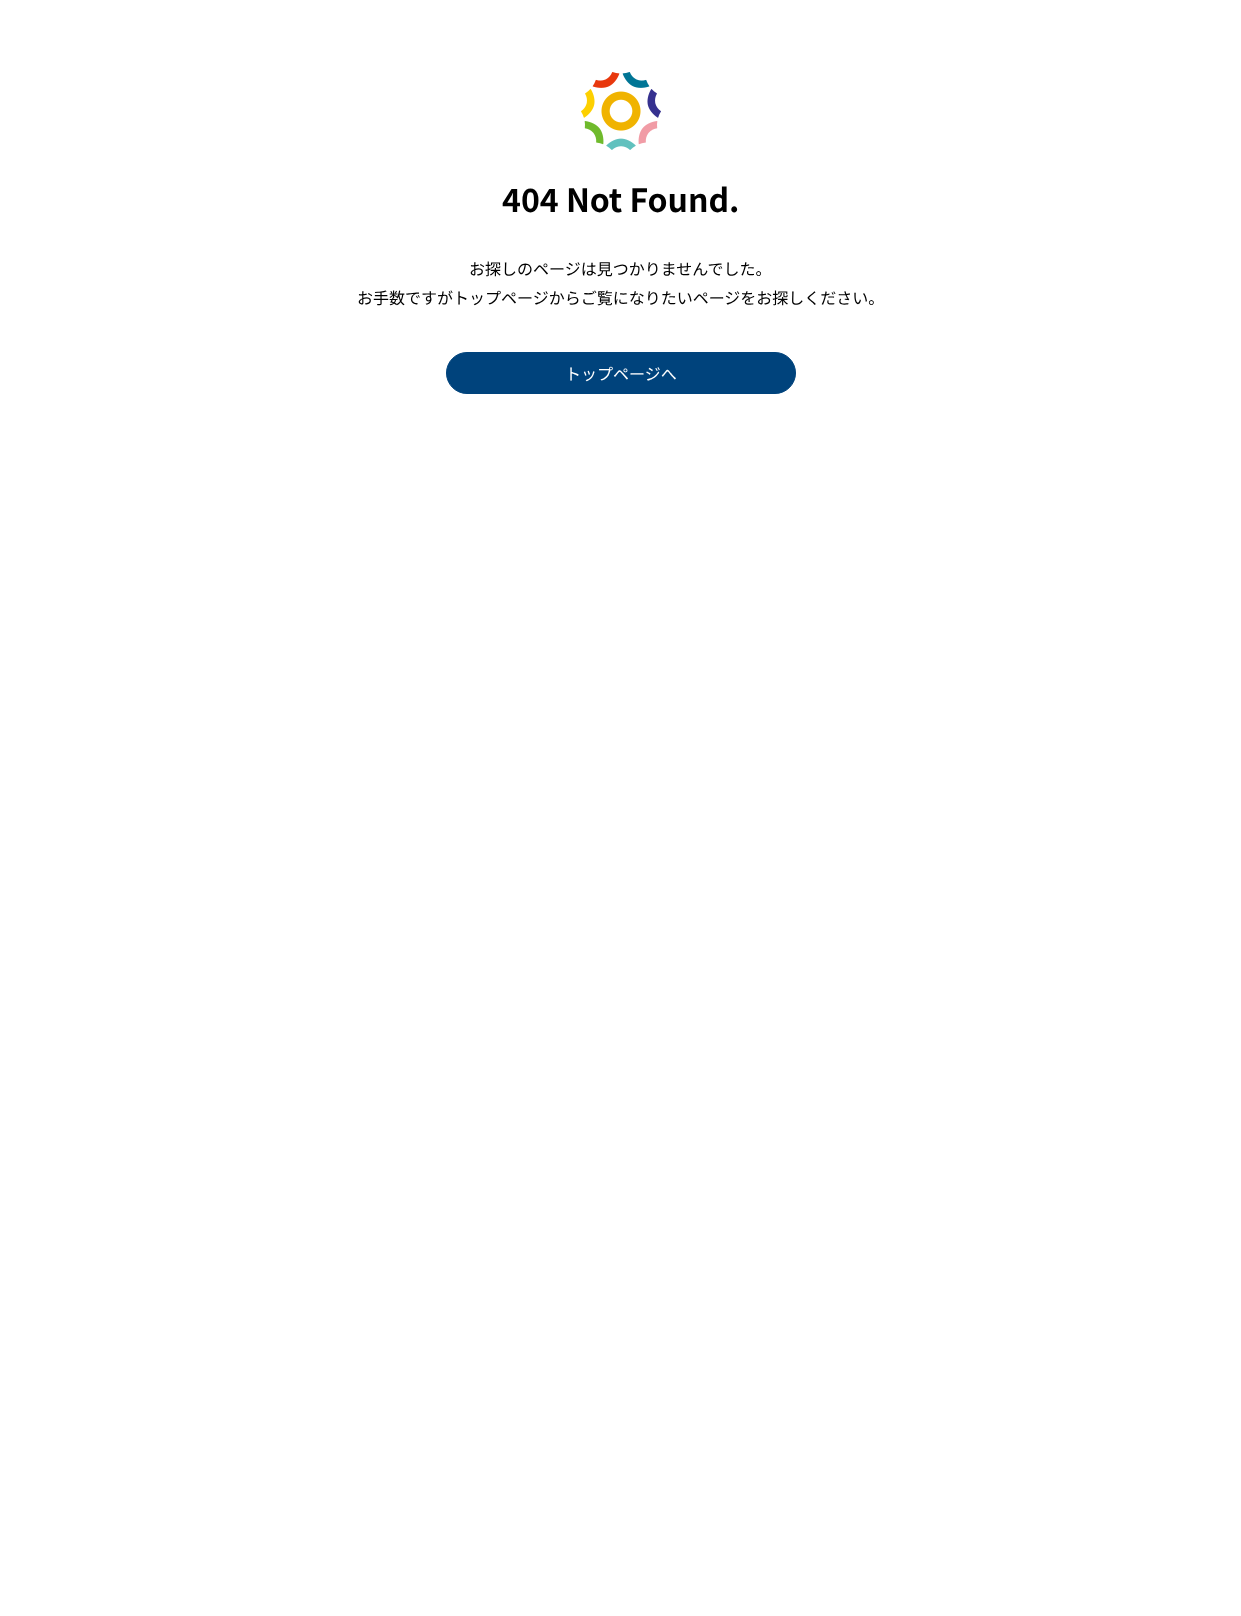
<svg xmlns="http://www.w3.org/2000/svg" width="1241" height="1616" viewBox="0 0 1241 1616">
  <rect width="100%" height="100%" fill="#ffffff"/>
  <image x="581" y="72" width="80" height="78" href="img1.png"/>
  <text x="502" y="212" font-family="Noto Sans JP" font-size="32" font-weight="bold" fill="#000000">404 Not Found.</text>
  <text x="469" y="275" font-family="Noto Sans JP" font-size="16" fill="#000000">お探しのページは見つかりませんでした。</text>
  <text x="357" y="304" font-family="Noto Sans JP" font-size="16" fill="#000000">お手数ですがトップページからご覧になりたいページをお探しください。</text>
  <rect x="446.5" y="352.5" width="349" height="41" rx="20.5" fill="#00437c" stroke="#00437c"/>
  <text x="565" y="380" font-family="Noto Sans JP" font-size="16" fill="#ffffff">トップページへ</text>
</svg>
